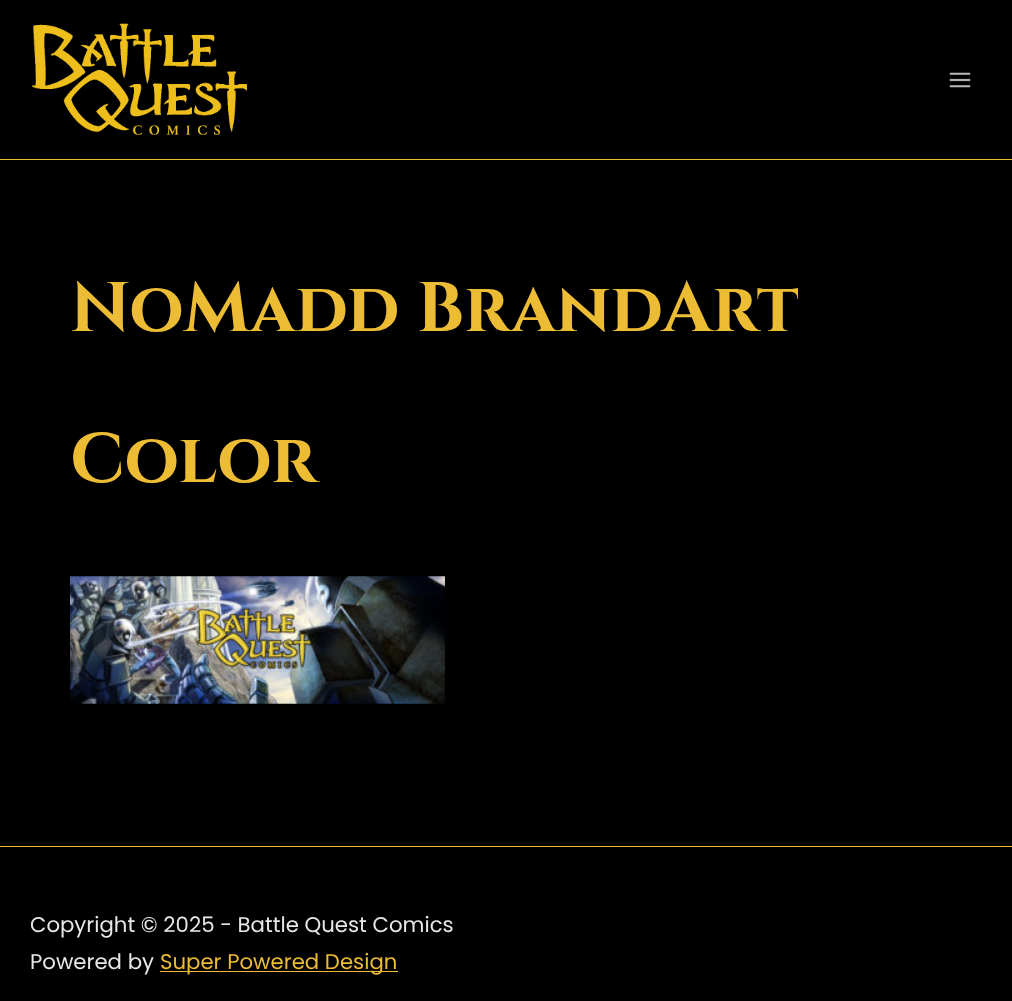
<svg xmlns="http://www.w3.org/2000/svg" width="1012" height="1001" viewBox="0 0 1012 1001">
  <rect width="100%" height="100%" fill="#000000"/>
  <rect x="0" y="159" width="1012" height="1" fill="#edbc35"/>
  <image x="31" y="23" width="216" height="112" href="img1.png"/>
  <image x="949" y="72" width="22" height="16" href="img2.png"/>
  <text x="70" y="331" font-family="Cinzel" font-size="70" font-weight="bold" fill="#edbc35">NoMadd BrandArt</text>
  <text x="70" y="482" font-family="Cinzel" font-size="70" font-weight="bold" fill="#edbc35">Color</text>
  <image x="70" y="576" width="375" height="128" href="img3.png"/>
  <rect x="0" y="846" width="1012" height="1" fill="#edbc35"/>
  <text x="30" y="932" font-family="Poppins" font-size="21.25" fill="#e7e7e7">Copyright © 2025 - Battle Quest Comics</text>
  <text x="30" y="969" font-family="Poppins" font-size="21.25" fill="#e7e7e7">Powered by</text>
  <rect x="160" y="971" width="238" height="1" fill="#edbc35"/>
  <text x="160" y="969" font-family="Poppins" font-size="21.25" fill="#edbc35">Super Powered Design</text>
</svg>
